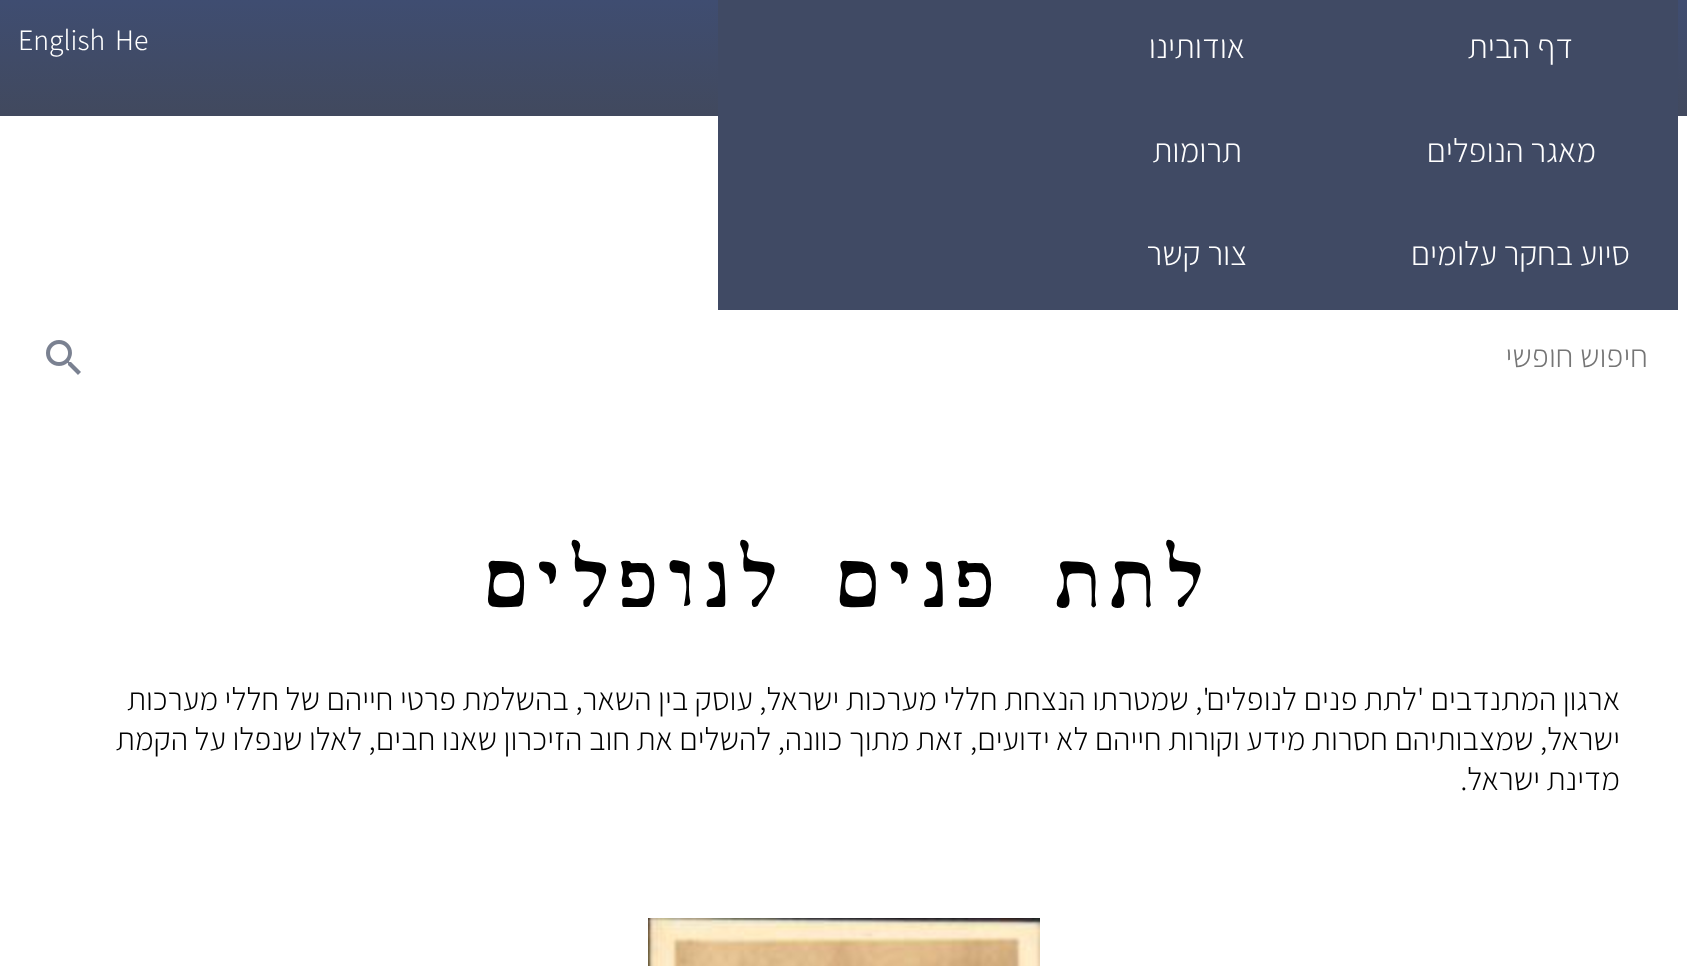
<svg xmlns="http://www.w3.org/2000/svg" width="1687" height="966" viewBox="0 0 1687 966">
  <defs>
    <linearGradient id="g1" gradientUnits="userSpaceOnUse" x1="844" y1="116" x2="844" y2="0"><stop offset="0" stop-color="#41495e"/><stop offset="1" stop-color="#3f4d71"/></linearGradient>
  </defs>
  <rect width="100%" height="100%" fill="#ffffff"/>
  <rect x="0" y="0" width="1687" height="116" fill="url(#g1)"/>
  <rect x="718" y="0" width="960" height="310" fill="#404a64"/>
  <text x="1573" y="58" font-family="Assistant" font-size="33.5" font-weight="300" direction="rtl" fill="#ffffff">דף הבית</text>
  <text x="1245" y="58" font-family="Assistant" font-size="33.5" font-weight="300" direction="rtl" fill="#ffffff">אודותינו</text>
  <text x="1596" y="162" font-family="Assistant" font-size="33.5" font-weight="300" direction="rtl" fill="#ffffff">מאגר הנופלים</text>
  <text x="1242" y="162" font-family="Assistant" font-size="33.5" font-weight="300" direction="rtl" fill="#ffffff">תרומות</text>
  <text x="1630" y="265" font-family="Assistant" font-size="33.5" font-weight="300" direction="rtl" fill="#ffffff">סיוע בחקר עלומים</text>
  <text x="1247" y="265" font-family="Assistant" font-size="33.5" font-weight="300" direction="rtl" fill="#ffffff">צור קשר</text>
  <text x="115" y="50" font-family="Assistant" font-size="29.5" font-weight="300" fill="#ffffff">He</text>
  <text x="18" y="50" font-family="Assistant" font-size="29.5" font-weight="300" fill="#ffffff">English</text>
  <text x="1648" y="367" font-family="Assistant" font-size="32" font-weight="300" direction="rtl" fill="#757575">חיפוש חופשי</text>
  <image x="46" y="340" width="35" height="35" href="img1.png"/>
  <text x="1208" y="607" font-family="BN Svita" font-size="84" direction="rtl" fill="#000000">לתת פנים לנופלים</text>
  <text x="1620" y="710" font-family="Assistant" font-size="32" font-weight="300" direction="rtl" fill="#000000">ארגון המתנדבים 'לתת פנים לנופלים', שמטרתו הנצחת חללי מערכות ישראל, עוסק בין השאר, בהשלמת פרטי חייהם של חללי מערכות</text>
  <text x="1620" y="750" font-family="Assistant" font-size="32" font-weight="300" direction="rtl" fill="#000000">ישראל, שמצבותיהם חסרות מידע וקורות חייהם לא ידועים, זאת מתוך כוונה, להשלים את חוב הזיכרון שאנו חבים, לאלו שנפלו על הקמת</text>
  <text x="1620" y="790" font-family="Assistant" font-size="32" font-weight="300" direction="rtl" fill="#000000">מדינת ישראל.</text>
  <image x="648" y="918" width="392" height="48" href="img2.png"/>
</svg>
